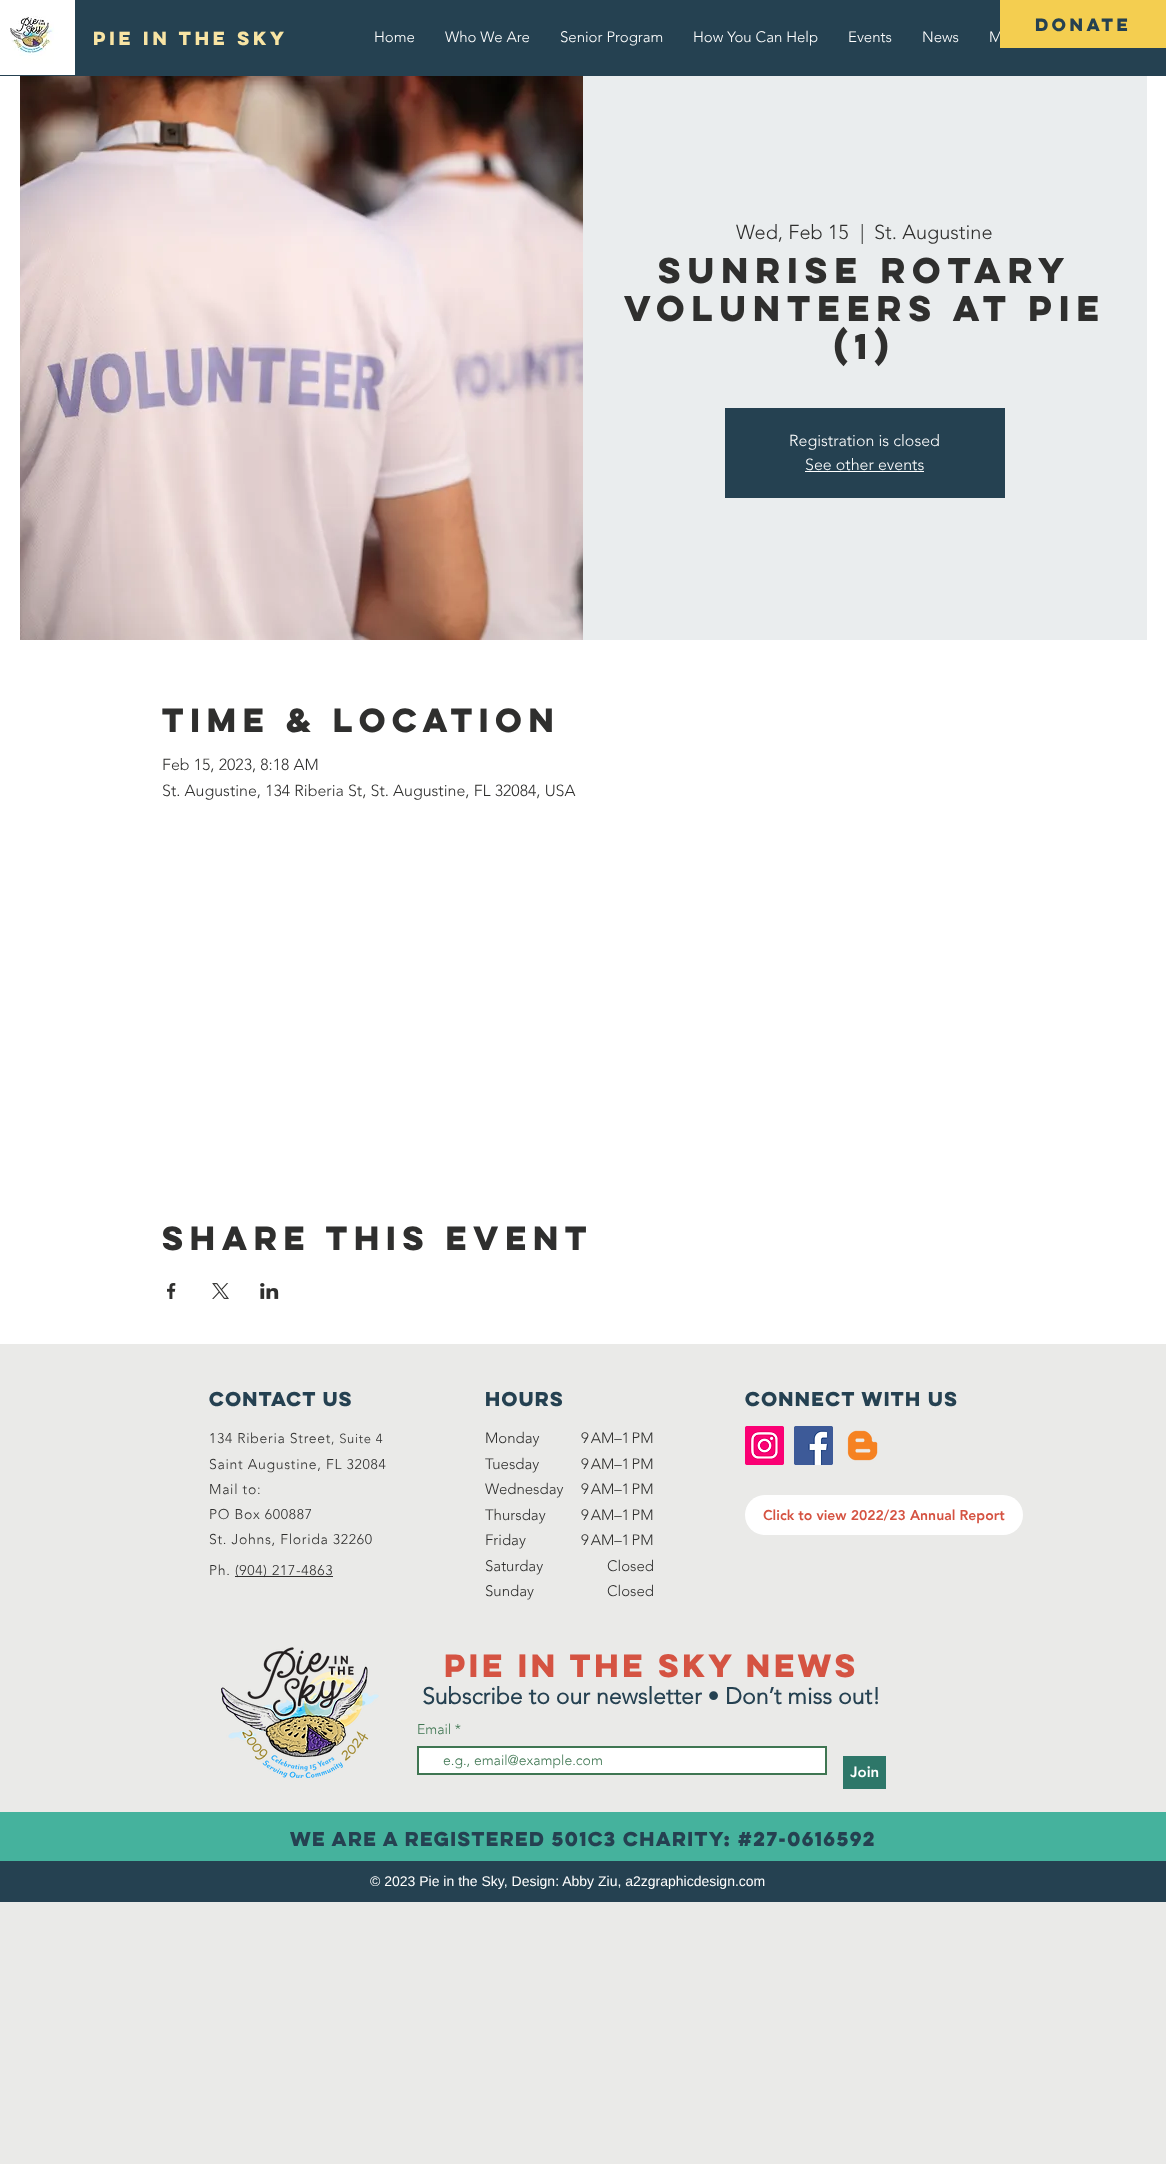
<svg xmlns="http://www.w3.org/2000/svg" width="1166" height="2164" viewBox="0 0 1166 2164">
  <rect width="100%" height="100%" fill="#eaeae8"/>
  <rect x="0" y="0" width="1166" height="76" fill="#254151"/>
  <text x="989" y="42" font-family="'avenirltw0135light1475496'" font-size="15" font-weight="300" fill="#ffffff">M</text>
  <rect x="1000" y="0" width="166" height="48" fill="#f4ce50"/>
  <text x="1035" y="31" font-family="'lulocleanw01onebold'" font-size="16" font-weight="bold" fill="#254151">DONATE</text>
  <image x="0" y="0" width="75" height="75" href="img1.png"/>
  <text x="93" y="45" font-family="'lulocleanw01onebold'" font-size="17" font-weight="bold" fill="#f8e4a4">pie in the sky</text>
  <text x="374" y="42" font-family="'avenirltw0135light1475496'" font-size="15" font-weight="300" fill="#ffffff">Home</text>
  <text x="445" y="42" font-family="'avenirltw0135light1475496'" font-size="15" font-weight="300" fill="#ffffff">Who We Are</text>
  <text x="560" y="42" font-family="'avenirltw0135light1475496'" font-size="15" font-weight="300" fill="#ffffff">Senior Program</text>
  <text x="693" y="42" font-family="'avenirltw0135light1475496'" font-size="15" font-weight="300" fill="#ffffff">How You Can Help</text>
  <text x="848" y="42" font-family="'avenirltw0135light1475496'" font-size="15" font-weight="300" fill="#ffffff">Events</text>
  <text x="922" y="42" font-family="'avenirltw0135light1475496'" font-size="15" font-weight="300" fill="#ffffff">News</text>
  <rect x="0" y="76" width="1166" height="1268" fill="#ffffff"/>
  <image x="20" y="76" width="563" height="564" href="img2.png"/>
  <rect x="583" y="76" width="564" height="564" fill="#eaedee"/>
  <text x="736" y="239" font-family="'avenirltw0135light1475496'" font-size="20" font-weight="300" fill="#2f2f2e">Wed, Feb 15</text>
  <text x="860" y="239" font-family="'avenirltw0135light1475496'" font-size="20" font-weight="300" fill="#2f2f2e">|</text>
  <text x="874" y="239" font-family="'avenirltw0135light1475496'" font-size="20" font-weight="300" fill="#2f2f2e">St. Augustine</text>
  <text x="658" y="283" font-family="'lulocleanw01onebold'" font-size="32" font-weight="bold" fill="#2f2f2e">Sunrise Rotary</text>
  <text x="624" y="321" font-family="'lulocleanw01onebold'" font-size="32" font-weight="bold" fill="#2f2f2e">Volunteers at Pie</text>
  <text x="834" y="359" font-family="'lulocleanw01onebold'" font-size="32" font-weight="bold" fill="#2f2f2e">(1)</text>
  <rect x="725" y="408" width="280" height="90" fill="#254151"/>
  <text x="789" y="446" font-family="'avenirltw0135light1475496'" font-size="16" font-weight="300" fill="#ffffff">Registration is closed</text>
  <text x="805" y="470" font-family="'avenirltw0135light1475496'" font-size="16" font-weight="300" fill="#ffffff">See other events</text>
  <rect x="805" y="471" width="119" height="1" fill="#ffffff"/>
  <text x="162" y="732" font-family="'lulocleanw01onebold'" font-size="30" font-weight="bold" fill="#2f2f2e">Time &amp; Location</text>
  <text x="162" y="770" font-family="'avenirltw0135light1475496'" font-size="16" font-weight="300" fill="#2f2f2e">Feb 15, 2023, 8:18 AM</text>
  <text x="162" y="796" font-family="'avenirltw0135light1475496'" font-size="16" font-weight="300" fill="#2f2f2e">St. Augustine, 134 Riberia St, St. Augustine, FL 32084, USA</text>
  <text x="162" y="1250" font-family="'lulocleanw01onebold'" font-size="30" font-weight="bold" fill="#2f2f2e">Share this event</text>
  <image x="167" y="1283" width="9" height="16" href="img3.png"/>
  <image x="212" y="1283" width="17" height="16" href="img4.png"/>
  <image x="260" y="1283" width="19" height="16" href="img5.png"/>
  <text x="209" y="1406" font-family="'lulocleanw01onebold'" font-size="18" font-weight="bold" letter-spacing="-2.7" fill="#254151">Contact Us</text>
  <text x="485" y="1406" font-family="'lulocleanw01onebold'" font-size="18" font-weight="bold" letter-spacing="-2.7" fill="#254151">hours</text>
  <text x="745" y="1406" font-family="'lulocleanw01onebold'" font-size="18" font-weight="bold" letter-spacing="-2.7" fill="#254151">Connect with us</text>
  <text x="209" y="1443" font-family="'avenirltw0135light1475496'" font-size="14" font-weight="300" letter-spacing="0.7" fill="#2f2f2e">134 Riberia Street</text>
  <text x="331" y="1443" font-family="'avenirltw0135light1475496'" font-size="13" font-weight="300" letter-spacing="0.7" fill="#2f2f2e">, Suite 4</text>
  <text x="209" y="1469" font-family="'avenirltw0135light1475496'" font-size="14" font-weight="300" letter-spacing="0.7" fill="#2f2f2e">Saint Augustine, FL 32084</text>
  <text x="209" y="1494" font-family="'avenirltw0135light1475496'" font-size="14" font-weight="300" letter-spacing="0.7" fill="#2f2f2e">Mail to:</text>
  <text x="209" y="1519" font-family="'avenirltw0135light1475496'" font-size="14" font-weight="300" letter-spacing="0.7" fill="#2f2f2e">PO Box 600887</text>
  <text x="209" y="1544" font-family="'avenirltw0135light1475496'" font-size="14" font-weight="300" letter-spacing="0.7" fill="#2f2f2e">St. Johns, Florida 32260</text>
  <text x="209" y="1575" font-family="'avenirltw0135light1475496'" font-size="14" font-weight="300" letter-spacing="0.7" fill="#2f2f2e">Ph.</text>
  <rect x="235" y="1576" width="98" height="1" fill="#2f2f2e"/>
  <text x="235" y="1575" font-family="'avenirltw0135light1475496'" font-size="14" font-weight="300" letter-spacing="0.7" fill="#2f2f2e">(904) 217-4863</text>
  <text x="485" y="1443" font-family="'avenirltw0135light1475496'" font-size="15" font-weight="300" fill="#2f2f2e">Monday</text>
  <text x="485" y="1469" font-family="'avenirltw0135light1475496'" font-size="15" font-weight="300" fill="#2f2f2e">Tuesday</text>
  <text x="485" y="1494" font-family="'avenirltw0135light1475496'" font-size="15" font-weight="300" fill="#2f2f2e">Wednesday</text>
  <text x="485" y="1520" font-family="'avenirltw0135light1475496'" font-size="15" font-weight="300" fill="#2f2f2e">Thursday</text>
  <text x="485" y="1545" font-family="'avenirltw0135light1475496'" font-size="15" font-weight="300" fill="#2f2f2e">Friday</text>
  <text x="485" y="1571" font-family="'avenirltw0135light1475496'" font-size="15" font-weight="300" fill="#2f2f2e">Saturday</text>
  <text x="485" y="1596" font-family="'avenirltw0135light1475496'" font-size="15" font-weight="300" fill="#2f2f2e">Sunday</text>
  <text x="581" y="1443" font-family="'avenirltw0135light1475496'" font-size="15" font-weight="300" fill="#2f2f2e">9 AM–1 PM</text>
  <text x="581" y="1469" font-family="'avenirltw0135light1475496'" font-size="15" font-weight="300" fill="#2f2f2e">9 AM–1 PM</text>
  <text x="581" y="1494" font-family="'avenirltw0135light1475496'" font-size="15" font-weight="300" fill="#2f2f2e">9 AM–1 PM</text>
  <text x="581" y="1520" font-family="'avenirltw0135light1475496'" font-size="15" font-weight="300" fill="#2f2f2e">9 AM–1 PM</text>
  <text x="581" y="1545" font-family="'avenirltw0135light1475496'" font-size="15" font-weight="300" fill="#2f2f2e">9 AM–1 PM</text>
  <text x="607" y="1571" font-family="'avenirltw0135light1475496'" font-size="15" font-weight="300" fill="#2f2f2e">Closed</text>
  <text x="607" y="1596" font-family="'avenirltw0135light1475496'" font-size="15" font-weight="300" fill="#2f2f2e">Closed</text>
  <image x="745" y="1426" width="39" height="39" href="img6.png"/>
  <image x="794" y="1426" width="39" height="39" href="img7.png"/>
  <image x="847" y="1430" width="31" height="31" href="img8.png"/>
  <rect x="745" y="1495" width="278" height="40" rx="20" fill="#ffffff"/>
  <text x="763" y="1520" font-family="'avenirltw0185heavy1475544'" font-size="14" font-weight="900" fill="#d55342">Click to view 2022/23 Annual Report</text>
  <image x="221" y="1647" width="158" height="131" href="img9.png"/>
  <text x="444" y="1677" font-family="'lulocleanw01onebold'" font-size="29" font-weight="bold" letter-spacing="-2.9" fill="#d55342">pie in the sky news</text>
  <text x="422" y="1704" font-family="'avenirltw0135light1475496'" font-size="23" font-weight="bold" fill="#254151">Subscribe to our newsletter • Don’t miss out!</text>
  <text x="417" y="1734" font-family="'avenirltw0135light1475496'" font-size="14" font-weight="300" fill="#3f7652">Email *</text>
  <rect x="418" y="1747" width="408" height="27" fill="#ffffff" stroke="#3f7652" stroke-width="2"/>
  <text x="443" y="1765" font-family="'avenirltw0135light1475496'" font-size="14" font-weight="300" fill="#3f7652">e.g., email@example.com</text>
  <rect x="843" y="1756" width="43" height="33" fill="#2e7769"/>
  <text x="850" y="1777" font-family="'avenirltw0185heavy1475544'" font-size="15" font-weight="900" fill="#ffffff">Join</text>
  <rect x="0" y="1812" width="1166" height="49" fill="#45b29d"/>
  <text x="290" y="1846" font-family="'lulocleanw01onebold'" font-size="18" font-weight="bold" letter-spacing="-2.7" fill="#254151">we are a registered 501c3 Charity: #27-0616592</text>
  <rect x="0" y="1861" width="1166" height="41" fill="#254151"/>
  <text x="370" y="1886" font-family="Liberation Sans" font-size="14" fill="#ffffff">© 2023 Pie in the Sky, Design: Abby Ziu, a2zgraphicdesign.com</text>
</svg>
